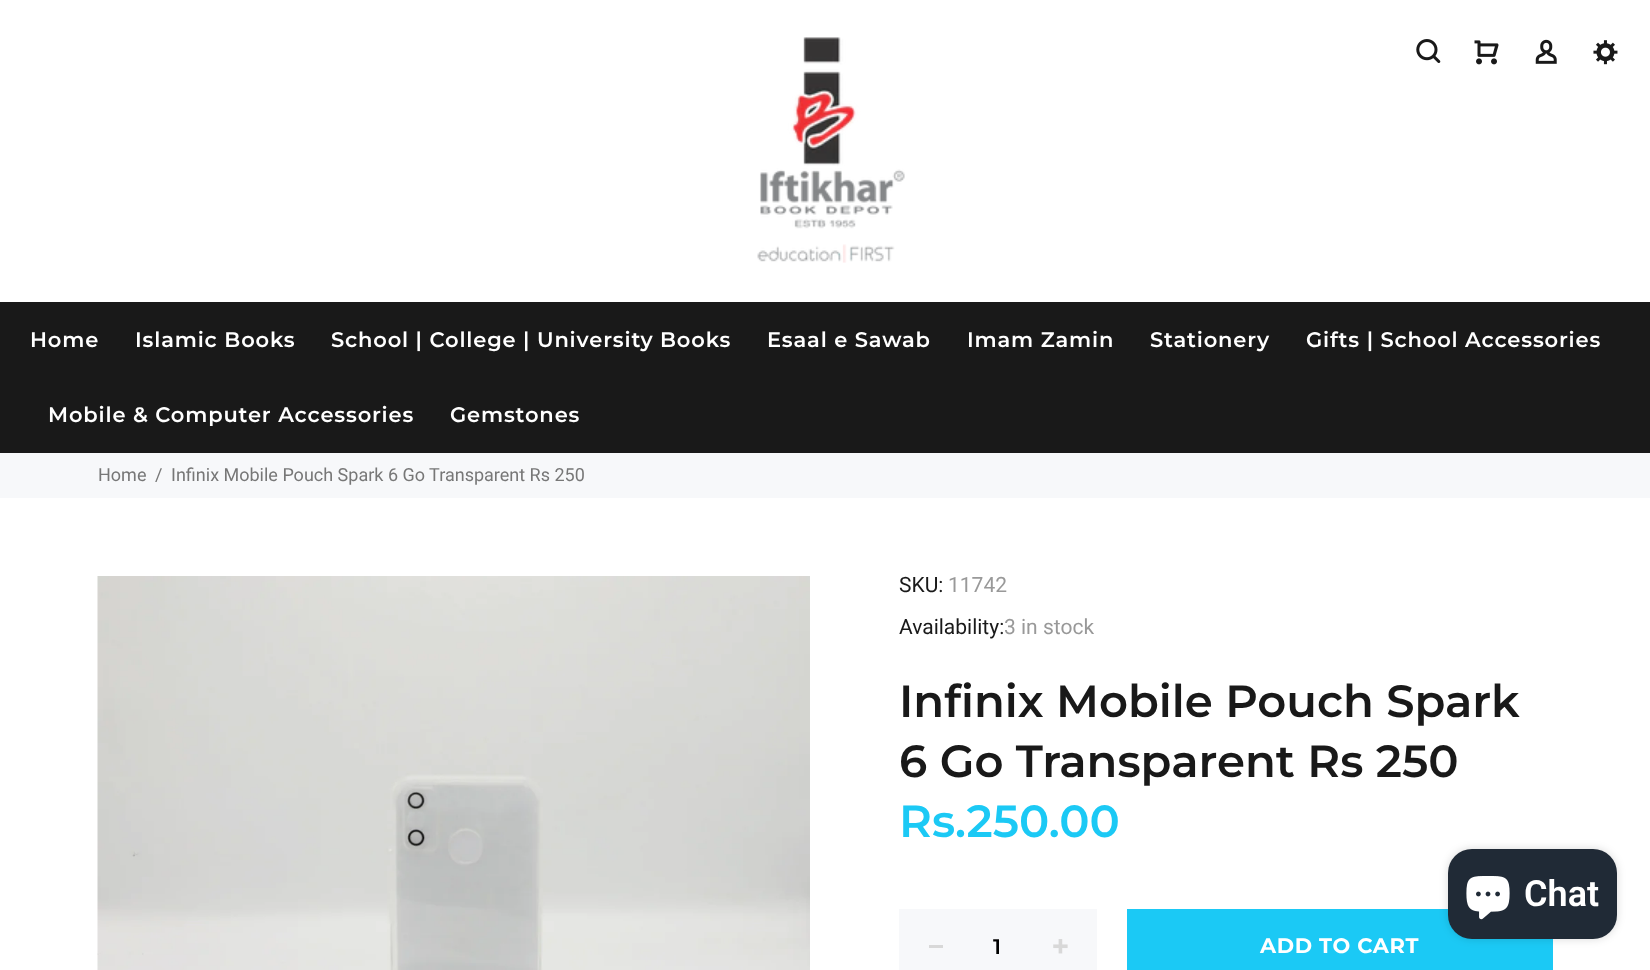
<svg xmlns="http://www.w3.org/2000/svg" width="1650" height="970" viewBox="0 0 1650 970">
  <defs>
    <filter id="blur1" x="-50%" y="-200%" width="200%" height="500%"><feGaussianBlur stdDeviation="4"/></filter>
  </defs>
  <rect width="100%" height="100%" fill="#ffffff"/>
  <image x="757" y="37" width="148" height="226" href="img1.png"/>
  <image x="1416" y="39" width="25" height="24" href="img2.png"/>
  <image x="1474" y="40" width="25" height="25" href="img3.png"/>
  <image x="1535" y="39" width="22" height="25" href="img4.png"/>
  <image x="1593" y="40" width="25" height="25" href="img5.png"/>
  <rect x="0" y="302" width="1650" height="151" fill="#191919"/>
  <text x="30" y="347" font-family="Montserrat" font-size="21" font-weight="600" letter-spacing="0.85" fill="#ffffff">Home</text>
  <text x="135" y="347" font-family="Montserrat" font-size="21" font-weight="600" letter-spacing="0.85" fill="#ffffff">Islamic Books</text>
  <text x="331" y="347" font-family="Montserrat" font-size="21" font-weight="600" letter-spacing="0.85" fill="#ffffff">School | College | University Books</text>
  <text x="767" y="347" font-family="Montserrat" font-size="21" font-weight="600" letter-spacing="0.85" fill="#ffffff">Esaal e Sawab</text>
  <text x="967" y="347" font-family="Montserrat" font-size="21" font-weight="600" letter-spacing="0.85" fill="#ffffff">Imam Zamin</text>
  <text x="1150" y="347" font-family="Montserrat" font-size="21" font-weight="600" letter-spacing="0.85" fill="#ffffff">Stationery</text>
  <text x="1306" y="347" font-family="Montserrat" font-size="21" font-weight="600" letter-spacing="0.85" fill="#ffffff">Gifts | School Accessories</text>
  <text x="48" y="422" font-family="Montserrat" font-size="21" font-weight="600" letter-spacing="0.85" fill="#ffffff">Mobile &amp; Computer Accessories</text>
  <text x="450" y="422" font-family="Montserrat" font-size="21" font-weight="600" letter-spacing="0.85" fill="#ffffff">Gemstones</text>
  <rect x="0" y="453" width="1650" height="45" fill="#f7f8fa"/>
  <text x="98" y="481" font-family="Roboto" font-size="18" fill="#777777">Home</text>
  <text x="155" y="481" font-family="Roboto" font-size="18" fill="#777777">/</text>
  <text x="171" y="481" font-family="Roboto" font-size="18" fill="#777777">Infinix Mobile Pouch Spark 6 Go Transparent Rs 250</text>
  <image x="97" y="576" width="713" height="394" href="img6.png"/>
  <text x="899" y="592" font-family="Roboto" font-size="21" fill="#191919">SKU:</text>
  <text x="948" y="592" font-family="Roboto" font-size="21" fill="#999999">11742</text>
  <text x="899" y="634" font-family="Roboto" font-size="21" fill="#191919">Availability:</text>
  <text x="1004" y="634" font-family="Roboto" font-size="21" fill="#999999">3 in stock</text>
  <text x="899" y="717" font-family="Montserrat" font-size="45" font-weight="600" fill="#191919">Infinix Mobile Pouch Spark</text>
  <text x="899" y="777" font-family="Montserrat" font-size="45" font-weight="600" fill="#191919">6 Go Transparent Rs 250</text>
  <text x="899" y="837" font-family="Montserrat" font-size="45" font-weight="600" fill="#1bc9f5">Rs.250.00</text>
  <rect x="899" y="909" width="198" height="61" fill="#f7f8fa"/>
  <rect x="929" y="945" width="14" height="3" fill="#d8d8d8"/>
  <text x="993" y="954" font-family="Montserrat" font-size="21" font-weight="600" fill="#000000">1</text>
  <image x="1053" y="939" width="15" height="15" href="img7.png"/>
  <rect x="1127" y="909" width="426" height="61" fill="#1bc9f5"/>
  <text x="1260" y="953" font-family="Montserrat" font-size="21" font-weight="bold" letter-spacing="0.6" fill="#ffffff">ADD TO CART</text>
  <rect x="1448" y="849" width="169" height="90" rx="24" fill="#000000" fill-opacity="0.15" filter="url(#blur1)"/>
  <rect x="1448" y="849" width="169" height="90" rx="24" fill="#202a36"/>
  <image x="1466" y="876" width="44" height="44" href="img8.png"/>
  <text x="1524" y="906" font-family="Roboto" font-size="36" font-weight="600" fill="#ffffff">Chat</text>
</svg>
